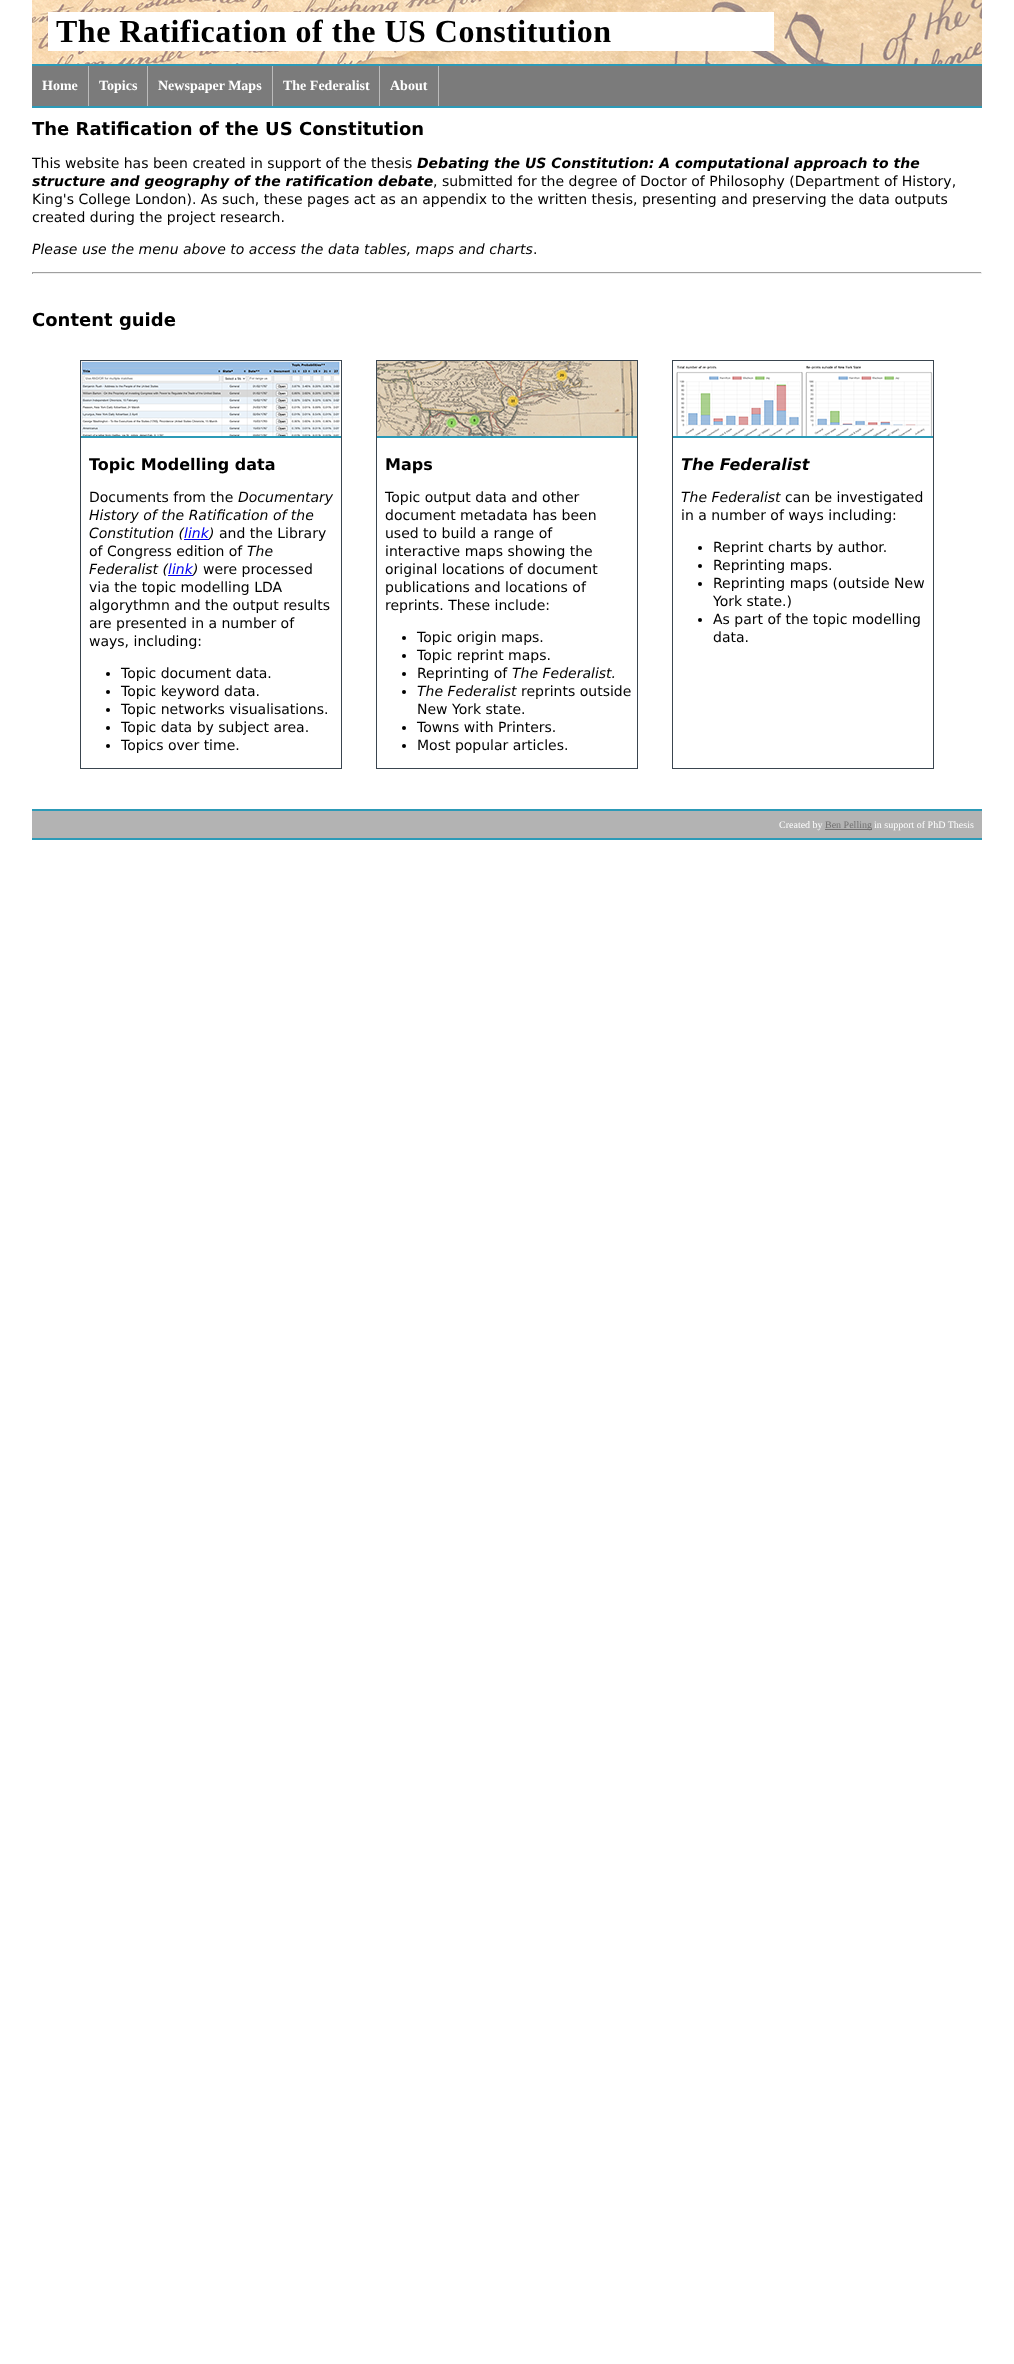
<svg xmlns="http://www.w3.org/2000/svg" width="1014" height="2364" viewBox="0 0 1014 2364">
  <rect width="100%" height="100%" fill="#ffffff"/>
  <image x="32" y="0" width="950" height="64" href="img1.png"/>
  <rect x="32" y="64" width="950" height="2" fill="#2c9ab7"/>
  <rect x="48" y="12" width="726" height="39" fill="#ffffff"/>
  <text x="56" y="42" font-family="Liberation Serif" font-size="32" font-weight="bold" letter-spacing="0.5" fill="#000000">The Ratification of the US Constitution</text>
  <rect x="32" y="66" width="950" height="40" fill="#7b7b7b"/>
  <rect x="32" y="106" width="950" height="2" fill="#2c9ab7"/>
  <rect x="88" y="66" width="1" height="40" fill="#bbbbbb"/>
  <text x="42" y="90" font-family="Liberation Serif" font-size="14" font-weight="bold" fill="#ffffff">Home</text>
  <rect x="147" y="66" width="1" height="40" fill="#bbbbbb"/>
  <text x="99" y="90" font-family="Liberation Serif" font-size="14" font-weight="bold" fill="#ffffff">Topics</text>
  <rect x="272" y="66" width="1" height="40" fill="#bbbbbb"/>
  <text x="158" y="90" font-family="Liberation Serif" font-size="14" font-weight="bold" fill="#ffffff">Newspaper Maps</text>
  <rect x="379" y="66" width="1" height="40" fill="#bbbbbb"/>
  <text x="283" y="90" font-family="Liberation Serif" font-size="14" font-weight="bold" fill="#ffffff">The Federalist</text>
  <rect x="438" y="66" width="1" height="40" fill="#bbbbbb"/>
  <text x="390" y="90" font-family="Liberation Serif" font-size="14" font-weight="bold" fill="#ffffff">About</text>
  <text x="32" y="135" font-family="DejaVu Sans" font-size="18" font-weight="bold" fill="#000000">The Ratification of the US Constitution</text>
  <text x="32" y="168" font-family="DejaVu Sans" font-size="14" fill="#000000">This website has been created in support of the thesis</text>
  <text x="417" y="168" font-family="DejaVu Sans" font-size="14" font-weight="bold" font-style="italic" fill="#000000">Debating the US Constitution: A computational approach to the</text>
  <text x="32" y="186" font-family="DejaVu Sans" font-size="14" font-weight="bold" font-style="italic" fill="#000000">structure and geography of the ratification debate</text>
  <text x="433" y="186" font-family="DejaVu Sans" font-size="14" fill="#000000">, submitted for the degree of Doctor of Philosophy (Department of History,</text>
  <text x="32" y="204" font-family="DejaVu Sans" font-size="14" fill="#000000">King's College London). As such, these pages act as an appendix to the written thesis, presenting and preserving the data outputs</text>
  <text x="32" y="222" font-family="DejaVu Sans" font-size="14" fill="#000000">created during the project research.</text>
  <text x="32" y="254" font-family="DejaVu Sans" font-size="14" font-style="italic" fill="#000000">Please use the menu above to access the data tables, maps and charts</text>
  <text x="533" y="254" font-family="DejaVu Sans" font-size="14" fill="#000000">.</text>
  <rect x="32" y="272" width="950" height="1" fill="#9f9f9f"/>
  <rect x="981" y="272" width="1" height="2" fill="#eeeeee"/>
  <rect x="32" y="273" width="950" height="1" fill="#eeeeee"/>
  <rect x="32" y="272" width="1" height="2" fill="#9f9f9f"/>
  <text x="32" y="326" font-family="DejaVu Sans" font-size="18" font-weight="bold" fill="#000000">Content guide</text>
  <rect x="80.5" y="360.5" width="261" height="408" fill="none" stroke="#3a454f"/>
  <image x="81" y="361" width="259" height="75" href="img2.png"/>
  <rect x="81" y="436" width="260" height="2" fill="#2c9ab7"/>
  <text x="89" y="470" font-family="DejaVu Sans" font-size="16" font-weight="bold" fill="#000000">Topic Modelling data</text>
  <text x="89" y="502" font-family="DejaVu Sans" font-size="14" fill="#000000">Documents from the</text>
  <text x="238" y="502" font-family="DejaVu Sans" font-size="14" font-style="italic" fill="#000000">Documentary</text>
  <text x="89" y="520" font-family="DejaVu Sans" font-size="14" font-style="italic" fill="#000000">History of the Ratification of the</text>
  <text x="89" y="538" font-family="DejaVu Sans" font-size="14" font-style="italic" fill="#000000">Constitution (</text>
  <rect x="184" y="539" width="25" height="1" fill="#0000ee"/>
  <text x="184" y="538" font-family="DejaVu Sans" font-size="14" font-style="italic" fill="#0000ee">link</text>
  <text x="209" y="538" font-family="DejaVu Sans" font-size="14" font-style="italic" fill="#000000">)</text>
  <text x="219" y="538" font-family="DejaVu Sans" font-size="14" fill="#000000">and the Library</text>
  <text x="89" y="556" font-family="DejaVu Sans" font-size="14" fill="#000000">of Congress edition of</text>
  <text x="247" y="556" font-family="DejaVu Sans" font-size="14" font-style="italic" fill="#000000">The</text>
  <text x="89" y="574" font-family="DejaVu Sans" font-size="14" font-style="italic" fill="#000000">Federalist (</text>
  <rect x="168" y="575" width="25" height="1" fill="#0000ee"/>
  <text x="168" y="574" font-family="DejaVu Sans" font-size="14" font-style="italic" fill="#0000ee">link</text>
  <text x="193" y="574" font-family="DejaVu Sans" font-size="14" font-style="italic" fill="#000000">)</text>
  <text x="203" y="574" font-family="DejaVu Sans" font-size="14" fill="#000000">were processed</text>
  <text x="89" y="592" font-family="DejaVu Sans" font-size="14" fill="#000000">via the topic modelling LDA</text>
  <text x="89" y="610" font-family="DejaVu Sans" font-size="14" fill="#000000">algorythmn and the output results</text>
  <text x="89" y="628" font-family="DejaVu Sans" font-size="14" fill="#000000">are presented in a number of</text>
  <text x="89" y="646" font-family="DejaVu Sans" font-size="14" fill="#000000">ways, including:</text>
  <circle cx="108" cy="674" r="2" fill="#000000"/>
  <text x="121" y="678" font-family="DejaVu Sans" font-size="14" fill="#000000">Topic document data.</text>
  <circle cx="108" cy="692" r="2" fill="#000000"/>
  <text x="121" y="696" font-family="DejaVu Sans" font-size="14" fill="#000000">Topic keyword data.</text>
  <circle cx="108" cy="710" r="2" fill="#000000"/>
  <text x="121" y="714" font-family="DejaVu Sans" font-size="14" fill="#000000">Topic networks visualisations.</text>
  <circle cx="108" cy="728" r="2" fill="#000000"/>
  <text x="121" y="732" font-family="DejaVu Sans" font-size="14" fill="#000000">Topic data by subject area.</text>
  <circle cx="108" cy="746" r="2" fill="#000000"/>
  <text x="121" y="750" font-family="DejaVu Sans" font-size="14" fill="#000000">Topics over time.</text>
  <rect x="376.5" y="360.5" width="261" height="408" fill="none" stroke="#3a454f"/>
  <image x="377" y="361" width="260" height="75" href="img3.png"/>
  <rect x="377" y="436" width="260" height="2" fill="#2c9ab7"/>
  <text x="385" y="470" font-family="DejaVu Sans" font-size="16" font-weight="bold" fill="#000000">Maps</text>
  <text x="385" y="502" font-family="DejaVu Sans" font-size="14" fill="#000000">Topic output data and other</text>
  <text x="385" y="520" font-family="DejaVu Sans" font-size="14" fill="#000000">document metadata has been</text>
  <text x="385" y="538" font-family="DejaVu Sans" font-size="14" fill="#000000">used to build a range of</text>
  <text x="385" y="556" font-family="DejaVu Sans" font-size="14" fill="#000000">interactive maps showing the</text>
  <text x="385" y="574" font-family="DejaVu Sans" font-size="14" fill="#000000">original locations of document</text>
  <text x="385" y="592" font-family="DejaVu Sans" font-size="14" fill="#000000">publications and locations of</text>
  <text x="385" y="610" font-family="DejaVu Sans" font-size="14" fill="#000000">reprints. These include:</text>
  <circle cx="404" cy="638" r="2" fill="#000000"/>
  <text x="417" y="642" font-family="DejaVu Sans" font-size="14" fill="#000000">Topic origin maps.</text>
  <circle cx="404" cy="656" r="2" fill="#000000"/>
  <text x="417" y="660" font-family="DejaVu Sans" font-size="14" fill="#000000">Topic reprint maps.</text>
  <circle cx="404" cy="674" r="2" fill="#000000"/>
  <text x="417" y="678" font-family="DejaVu Sans" font-size="14" fill="#000000">Reprinting of</text>
  <text x="512" y="678" font-family="DejaVu Sans" font-size="14" font-style="italic" fill="#000000">The Federalist.</text>
  <circle cx="404" cy="692" r="2" fill="#000000"/>
  <text x="417" y="696" font-family="DejaVu Sans" font-size="14" font-style="italic" fill="#000000">The Federalist</text>
  <text x="521" y="696" font-family="DejaVu Sans" font-size="14" fill="#000000">reprints outside</text>
  <text x="417" y="714" font-family="DejaVu Sans" font-size="14" fill="#000000">New York state.</text>
  <circle cx="404" cy="728" r="2" fill="#000000"/>
  <text x="417" y="732" font-family="DejaVu Sans" font-size="14" fill="#000000">Towns with Printers.</text>
  <circle cx="404" cy="746" r="2" fill="#000000"/>
  <text x="417" y="750" font-family="DejaVu Sans" font-size="14" fill="#000000">Most popular articles.</text>
  <rect x="672.5" y="360.5" width="261" height="408" fill="none" stroke="#3a454f"/>
  <image x="676" y="365" width="257" height="71" href="img4.png"/>
  <rect x="673" y="436" width="260" height="2" fill="#2c9ab7"/>
  <text x="681" y="470" font-family="DejaVu Sans" font-size="16" font-weight="bold" font-style="italic" fill="#000000">The Federalist</text>
  <text x="681" y="502" font-family="DejaVu Sans" font-size="14" font-style="italic" fill="#000000">The Federalist</text>
  <text x="785" y="502" font-family="DejaVu Sans" font-size="14" fill="#000000">can be investigated</text>
  <text x="681" y="520" font-family="DejaVu Sans" font-size="14" fill="#000000">in a number of ways including:</text>
  <circle cx="700" cy="548" r="2" fill="#000000"/>
  <text x="713" y="552" font-family="DejaVu Sans" font-size="14" fill="#000000">Reprint charts by author.</text>
  <circle cx="700" cy="566" r="2" fill="#000000"/>
  <text x="713" y="570" font-family="DejaVu Sans" font-size="14" fill="#000000">Reprinting maps.</text>
  <circle cx="700" cy="584" r="2" fill="#000000"/>
  <text x="713" y="588" font-family="DejaVu Sans" font-size="14" fill="#000000">Reprinting maps (outside New</text>
  <text x="713" y="606" font-family="DejaVu Sans" font-size="14" fill="#000000">York state.)</text>
  <circle cx="700" cy="620" r="2" fill="#000000"/>
  <text x="713" y="624" font-family="DejaVu Sans" font-size="14" fill="#000000">As part of the topic modelling</text>
  <text x="713" y="642" font-family="DejaVu Sans" font-size="14" fill="#000000">data.</text>
  <rect x="32" y="811" width="950" height="27" fill="#b3b3b3"/>
  <rect x="32" y="809" width="950" height="2" fill="#2c9ab7"/>
  <rect x="32" y="838" width="950" height="2" fill="#2c9ab7"/>
  <text x="779" y="828" font-family="Liberation Serif" font-size="10" fill="#ffffff">Created by</text>
  <rect x="825" y="829" width="47" height="1" fill="#717070"/>
  <text x="825" y="828" font-family="Liberation Serif" font-size="10" fill="#717070">Ben Pelling</text>
  <text x="874" y="828" font-family="Liberation Serif" font-size="10" fill="#ffffff">in support of PhD Thesis</text>
</svg>
